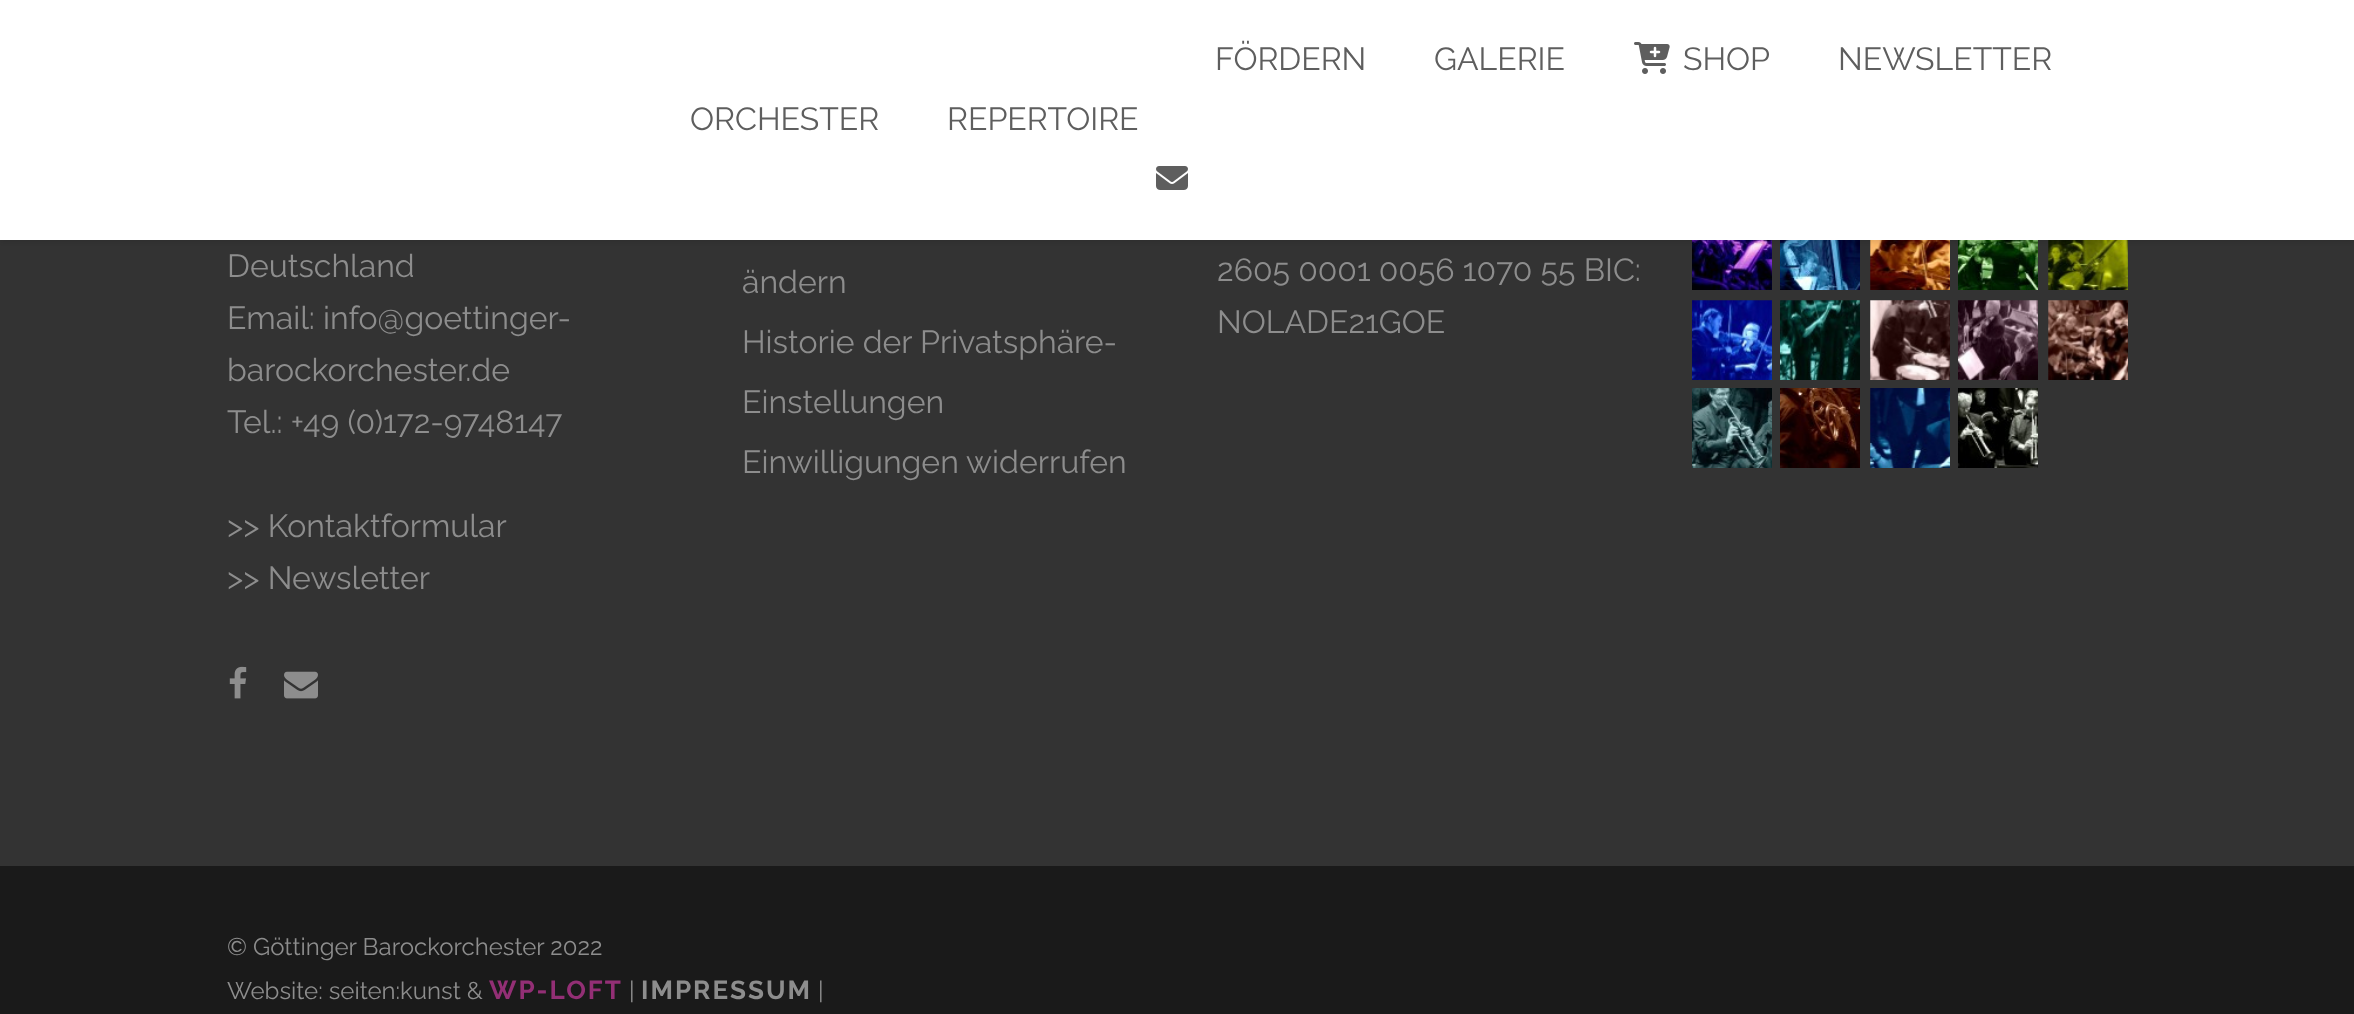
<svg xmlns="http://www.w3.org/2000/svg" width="2354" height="1014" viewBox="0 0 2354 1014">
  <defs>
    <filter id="blur1" x="-50%" y="-200%" width="200%" height="500%"><feGaussianBlur stdDeviation="3"/></filter>
  </defs>
  <rect width="100%" height="100%" fill="#1a1a1a"/>
  <rect x="0" y="240" width="2354" height="626" fill="#333333"/>
  <image x="1692" y="240" width="80" height="50" href="img5.png"/>
  <image x="1780" y="240" width="80" height="50" href="img6.png"/>
  <image x="1870" y="240" width="80" height="50" href="img7.png"/>
  <image x="1958" y="240" width="80" height="50" href="img8.png"/>
  <image x="2048" y="240" width="80" height="50" href="img9.png"/>
  <rect x="0" y="2" width="2354" height="240" fill="#000000" fill-opacity="0.11" filter="url(#blur1)"/>
  <rect x="0" y="0" width="2354" height="240" fill="#ffffff"/>
  <text x="1215" y="70" font-family="Raleway" font-size="32" font-weight="100" fill="#5e5e5e">FÖRDERN</text>
  <text x="1434" y="70" font-family="Raleway" font-size="32" font-weight="100" fill="#5e5e5e">GALERIE</text>
  <image x="1634" y="42" width="36" height="32" href="img1.png"/>
  <text x="1683" y="70" font-family="Raleway" font-size="32" font-weight="100" fill="#5e5e5e">SHOP</text>
  <text x="1838" y="70" font-family="Raleway" font-size="32" font-weight="100" fill="#5e5e5e">NEWSLETTER</text>
  <image x="1156" y="166" width="32" height="24" href="img2.png"/>
  <text x="690" y="130" font-family="Raleway" font-size="32" font-weight="100" fill="#5e5e5e">ORCHESTER</text>
  <text x="947" y="130" font-family="Raleway" font-size="32" font-weight="100" fill="#5e5e5e">REPERTOIRE</text>
  <text x="227" y="277" font-family="Raleway" font-size="32" font-weight="100" fill="#8d8d8d">Deutschland</text>
  <text x="227" y="329" font-family="Raleway" font-size="32" font-weight="100" fill="#8d8d8d">Email: info@goettinger-</text>
  <text x="227" y="381" font-family="Raleway" font-size="32" font-weight="100" fill="#8d8d8d">barockorchester.de</text>
  <text x="227" y="433" font-family="Raleway" font-size="32" font-weight="100" fill="#8d8d8d">Tel.: +49 (0)172-9748147</text>
  <text x="227" y="537" font-family="Raleway" font-size="32" font-weight="100" fill="#8d8d8d">&gt;&gt; Kontaktformular</text>
  <text x="227" y="589" font-family="Raleway" font-size="32" font-weight="100" fill="#8d8d8d">&gt;&gt; Newsletter</text>
  <image x="229" y="666" width="18" height="33" href="img3.png"/>
  <image x="284" y="671" width="34" height="28" href="img4.png"/>
  <text x="742" y="293" font-family="Raleway" font-size="32" font-weight="100" fill="#8d8d8d">ändern</text>
  <text x="742" y="353" font-family="Raleway" font-size="32" font-weight="100" fill="#8d8d8d">Historie der Privatsphäre-</text>
  <text x="742" y="413" font-family="Raleway" font-size="32" font-weight="100" fill="#8d8d8d">Einstellungen</text>
  <text x="742" y="473" font-family="Raleway" font-size="32" font-weight="100" fill="#8d8d8d">Einwilligungen widerrufen</text>
  <text x="1217" y="281" font-family="Raleway" font-size="32" font-weight="100" fill="#8d8d8d">2605 0001 0056 1070 55 BIC:</text>
  <text x="1217" y="333" font-family="Raleway" font-size="32" font-weight="100" fill="#8d8d8d">NOLADE21GOE</text>
  <image x="1692" y="300" width="80" height="80" href="img10.png"/>
  <image x="1780" y="300" width="80" height="80" href="img11.png"/>
  <image x="1870" y="300" width="80" height="80" href="img12.png"/>
  <image x="1958" y="300" width="80" height="80" href="img13.png"/>
  <image x="2048" y="300" width="80" height="80" href="img14.png"/>
  <image x="1692" y="388" width="80" height="80" href="img15.png"/>
  <image x="1780" y="388" width="80" height="80" href="img16.png"/>
  <image x="1870" y="388" width="80" height="80" href="img17.png"/>
  <image x="1958" y="388" width="80" height="80" href="img18.png"/>
  <text x="227" y="955" font-family="Raleway" font-size="24" font-weight="100" fill="#8d8d8d">© Göttinger Barockorchester 2022</text>
  <text x="227" y="999" font-family="Raleway" font-size="24" font-weight="100" fill="#8d8d8d">Website: seiten:kunst &amp;</text>
  <text x="489" y="999" font-family="'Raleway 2'" font-size="26" font-weight="100" letter-spacing="2" fill="#932f75">WP-LOFT</text>
  <text x="629" y="999" font-family="Raleway" font-size="24" font-weight="100" fill="#8d8d8d">|</text>
  <text x="641" y="999" font-family="'Raleway 2'" font-size="26" font-weight="100" letter-spacing="2" fill="#8d8d8d">IMPRESSUM</text>
  <text x="818" y="999" font-family="Raleway" font-size="24" font-weight="100" fill="#8d8d8d">|</text>
</svg>
